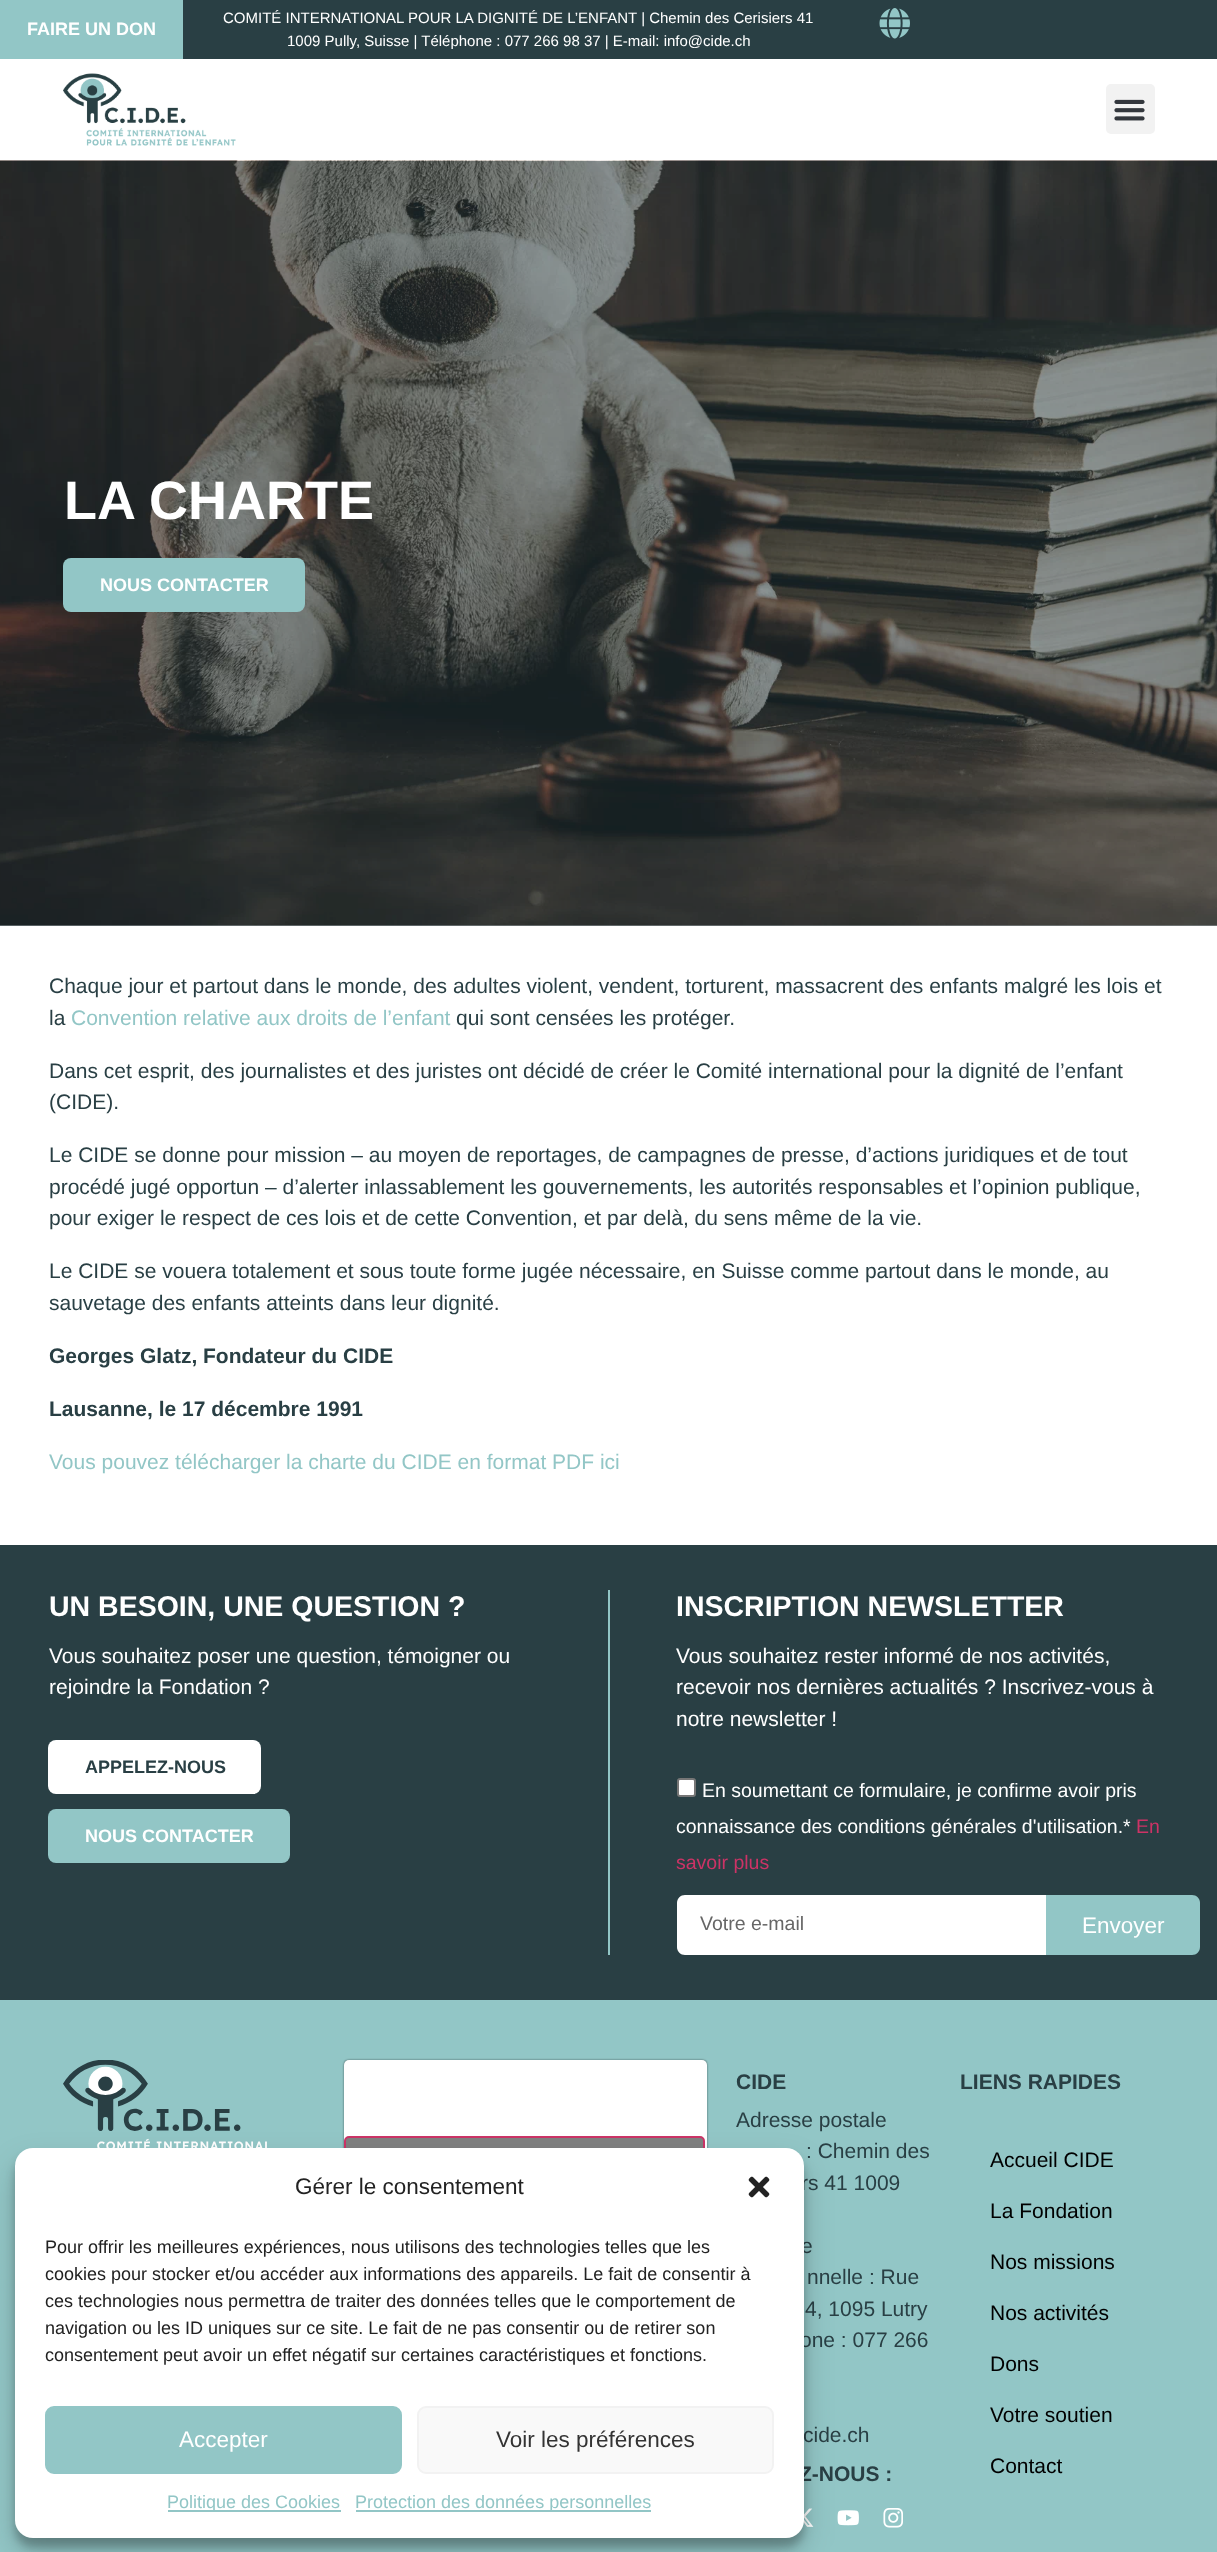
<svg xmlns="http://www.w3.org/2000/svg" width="1217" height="2552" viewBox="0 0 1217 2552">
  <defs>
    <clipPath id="clip1"><rect x="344" y="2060" width="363" height="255"/></clipPath>
    <filter id="blur1" x="-50%" y="-200%" width="200%" height="500%"><feGaussianBlur stdDeviation="7.5"/></filter>
    <filter id="blur2" x="-50%" y="-200%" width="200%" height="500%"><feGaussianBlur stdDeviation="1"/></filter>
    <filter id="blur3" x="-50%" y="-200%" width="200%" height="500%"><feGaussianBlur stdDeviation="4.5"/></filter>
    <filter id="blur4" x="-50%" y="-200%" width="200%" height="500%"><feGaussianBlur stdDeviation="15"/></filter>
  </defs>
  <rect width="100%" height="100%" fill="#ffffff"/>
  <rect x="0" y="925" width="1217" height="1" fill="#949fa2"/>
  <rect x="0" y="0" width="183" height="59" fill="#92c6c6"/>
  <text x="27" y="35" font-family="Liberation Sans" font-size="18" font-weight="bold" fill="#ffffff">FAIRE UN DON</text>
  <rect x="183" y="0" width="1034" height="59" fill="#293f44"/>
  <text x="223" y="23" font-family="Liberation Sans" font-size="15" fill="#ffffff">COMITÉ INTERNATIONAL POUR LA DIGNITÉ DE L’ENFANT | Chemin des Cerisiers 41</text>
  <text x="287" y="46" font-family="Liberation Sans" font-size="15" fill="#ffffff">1009 Pully, Suisse | Téléphone : 077 266 98 37 | E-mail: info@cide.ch</text>
  <image x="879" y="8" width="31" height="31" href="img1.png"/>
  <image x="63" y="73" width="173" height="73" href="img2.png"/>
  <rect x="1106" y="84" width="49" height="50" rx="5" fill="#f2f2f2"/>
  <image x="1114" y="99" width="31" height="22" href="img3.png"/>
  <image x="0" y="160" width="1217" height="766" href="img4.png"/>
  <text x="64" y="519" font-family="Liberation Sans" font-size="54" font-weight="bold" fill="#ffffff">LA CHARTE</text>
  <rect x="63" y="558" width="242" height="54" rx="8" fill="#92c6c6"/>
  <text x="100" y="591" font-family="Liberation Sans" font-size="18" font-weight="bold" fill="#ffffff">NOUS CONTACTER</text>
  <text x="49" y="993" font-family="Liberation Sans" font-size="21" fill="#293f44">Chaque jour et partout dans le monde, des adultes violent, vendent, torturent, massacrent des enfants malgré les lois et</text>
  <text x="49" y="1025" font-family="Liberation Sans" font-size="21" fill="#293f44">la</text>
  <text x="71" y="1025" font-family="Liberation Sans" font-size="21" fill="#92c6c6">Convention relative aux droits de l’enfant</text>
  <text x="456" y="1025" font-family="Liberation Sans" font-size="21" fill="#293f44">qui sont censées les protéger.</text>
  <text x="49" y="1078" font-family="Liberation Sans" font-size="21" fill="#293f44">Dans cet esprit, des journalistes et des juristes ont décidé de créer le Comité international pour la dignité de l’enfant</text>
  <text x="49" y="1109" font-family="Liberation Sans" font-size="21" fill="#293f44">(CIDE).</text>
  <text x="49" y="1162" font-family="Liberation Sans" font-size="21" fill="#293f44">Le CIDE se donne pour mission – au moyen de reportages, de campagnes de presse, d’actions juridiques et de tout</text>
  <text x="49" y="1194" font-family="Liberation Sans" font-size="21" fill="#293f44">procédé jugé opportun – d’alerter inlassablement les gouvernements, les autorités responsables et l’opinion publique,</text>
  <text x="49" y="1225" font-family="Liberation Sans" font-size="21" fill="#293f44">pour exiger le respect de ces lois et de cette Convention, et par delà, du sens même de la vie.</text>
  <text x="49" y="1278" font-family="Liberation Sans" font-size="21" fill="#293f44">Le CIDE se vouera totalement et sous toute forme jugée nécessaire, en Suisse comme partout dans le monde, au</text>
  <text x="49" y="1310" font-family="Liberation Sans" font-size="21" fill="#293f44">sauvetage des enfants atteints dans leur dignité.</text>
  <text x="49" y="1363" font-family="Liberation Sans" font-size="21" font-weight="bold" fill="#293f44">Georges Glatz, Fondateur du CIDE</text>
  <text x="49" y="1416" font-family="Liberation Sans" font-size="21" font-weight="bold" fill="#293f44">Lausanne, le 17 décembre 1991</text>
  <text x="49" y="1469" font-family="Liberation Sans" font-size="21" fill="#92c6c6">Vous pouvez télécharger la charte du CIDE en format PDF ici</text>
  <rect x="0" y="1545" width="1217" height="455" fill="#293f44"/>
  <rect x="608" y="1590" width="2" height="365" fill="#92c6c6"/>
  <text x="49" y="1616" font-family="Liberation Sans" font-size="28.5" font-weight="bold" fill="#ffffff">UN BESOIN, UNE QUESTION ?</text>
  <text x="49" y="1663" font-family="Liberation Sans" font-size="21" fill="#ffffff">Vous souhaitez poser une question, témoigner ou</text>
  <text x="49" y="1694" font-family="Liberation Sans" font-size="21" fill="#ffffff">rejoindre la Fondation ?</text>
  <rect x="48" y="1740" width="213" height="54" rx="8" fill="#ffffff"/>
  <text x="85" y="1773" font-family="Liberation Sans" font-size="18" font-weight="bold" fill="#293f44">APPELEZ-NOUS</text>
  <rect x="48" y="1809" width="242" height="54" rx="8" fill="#92c6c6"/>
  <text x="85" y="1842" font-family="Liberation Sans" font-size="18" font-weight="bold" fill="#ffffff">NOUS CONTACTER</text>
  <text x="676" y="1616" font-family="Liberation Sans" font-size="28.5" font-weight="bold" fill="#ffffff">INSCRIPTION NEWSLETTER</text>
  <text x="676" y="1663" font-family="Liberation Sans" font-size="21" fill="#ffffff">Vous souhaitez rester informé de nos activités,</text>
  <text x="676" y="1694" font-family="Liberation Sans" font-size="21" fill="#ffffff">recevoir nos dernières actualités ? Inscrivez-vous à</text>
  <text x="676" y="1726" font-family="Liberation Sans" font-size="21" fill="#ffffff">notre newsletter !</text>
  <rect x="678" y="1779" width="17" height="17" rx="2" fill="#ffffff" stroke="#767676" stroke-width="2"/>
  <text x="702" y="1797" font-family="Liberation Sans" font-size="19.5" fill="#ffffff">En soumettant ce formulaire, je confirme avoir pris</text>
  <text x="676" y="1833" font-family="Liberation Sans" font-size="19.5" fill="#ffffff">connaissance des conditions générales d'utilisation.*</text>
  <text x="1136" y="1833" font-family="Liberation Sans" font-size="19.5" fill="#cc3366">En</text>
  <text x="676" y="1869" font-family="Liberation Sans" font-size="19.5" fill="#cc3366">savoir plus</text>
  <path d="M685 1895H1046V1955H685C680.5 1955 677 1951.5 677 1947V1903C677 1898.5 680.5 1895 685 1895Z" fill="#ffffff"/>
  <text x="700" y="1930" font-family="Liberation Sans" font-size="19.5" fill="#666666">Votre e-mail</text>
  <path d="M1046 1895H1192C1196.5 1895 1200 1898.5 1200 1903V1947C1200 1951.5 1196.5 1955 1192 1955H1046Z" fill="#92c6c6"/>
  <text x="1082" y="1933" font-family="Liberation Sans" font-size="22.5" fill="#ffffff">Envoyer</text>
  <rect x="0" y="2000" width="1217" height="552" fill="#92c6c6"/>
  <image x="63" y="2060" width="204" height="88" href="img5.png"/>
  <g clip-path="url(#clip1)">
    <rect x="344" y="2061" width="363" height="255" rx="5" fill="#000000" fill-opacity="0.15" filter="url(#blur1)"/>
  </g>
  <rect x="344" y="2060" width="363" height="255" rx="5" fill="#000000" fill-opacity="0.5" filter="url(#blur2)"/>
  <rect x="344" y="2060" width="363" height="255" rx="5" fill="#ffffff"/>
  <rect x="345" y="2137" width="359" height="100" rx="4" fill="#808080" stroke="#cc3366" stroke-width="2"/>
  <text x="736" y="2089" font-family="Liberation Sans" font-size="21" font-weight="bold" fill="#293f44">CIDE</text>
  <text x="736" y="2127" font-family="Liberation Sans" font-size="21" fill="#293f44">Adresse postale</text>
  <text x="806" y="2158" font-family="Liberation Sans" font-size="21" fill="#293f44">: Chemin des</text>
  <text x="801" y="2190" font-family="Liberation Sans" font-size="21" fill="#293f44">rs 41 1009</text>
  <text x="801" y="2253" font-family="Liberation Sans" font-size="21" fill="#293f44">e</text>
  <text x="807" y="2284" font-family="Liberation Sans" font-size="21" fill="#293f44">nnelle : Rue</text>
  <text x="805" y="2316" font-family="Liberation Sans" font-size="21" fill="#293f44">4, 1095 Lutry</text>
  <text x="800" y="2347" font-family="Liberation Sans" font-size="21" fill="#293f44">one : 077 266</text>
  <text x="803" y="2442" font-family="Liberation Sans" font-size="21" fill="#293f44">cide.ch</text>
  <text x="799" y="2481" font-family="Liberation Sans" font-size="21" font-weight="bold" fill="#293f44">Z-NOUS :</text>
  <image x="803" y="2508" width="11" height="19" href="img6.png"/>
  <image x="837" y="2510" width="22" height="16" href="img7.png"/>
  <image x="883" y="2508" width="20" height="20" href="img8.png"/>
  <text x="960" y="2089" font-family="Liberation Sans" font-size="21" font-weight="bold" fill="#293f44">LIENS RAPIDES</text>
  <text x="990" y="2167" font-family="Liberation Sans" font-size="21" fill="#000000">Accueil CIDE</text>
  <text x="990" y="2218" font-family="Liberation Sans" font-size="21" fill="#000000">La Fondation</text>
  <text x="990" y="2269" font-family="Liberation Sans" font-size="21" fill="#000000">Nos missions</text>
  <text x="990" y="2320" font-family="Liberation Sans" font-size="21" fill="#000000">Nos activités</text>
  <text x="990" y="2371" font-family="Liberation Sans" font-size="21" fill="#000000">Dons</text>
  <text x="990" y="2422" font-family="Liberation Sans" font-size="21" fill="#000000">Votre soutien</text>
  <text x="990" y="2473" font-family="Liberation Sans" font-size="21" fill="#000000">Contact</text>
  <rect x="15" y="2157" width="789" height="390" rx="18" fill="#000000" fill-opacity="0.23" filter="url(#blur3)"/>
  <rect x="15" y="2163" width="789" height="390" rx="18" fill="#000000" fill-opacity="0.19" filter="url(#blur4)"/>
  <rect x="15" y="2148" width="789" height="390" rx="18" fill="#ffffff"/>
  <text x="295" y="2194" font-family="Liberation Sans" font-size="22.5" fill="#222222">Gérer le consentement</text>
  <image x="748" y="2176" width="22" height="22" href="img9.png"/>
  <text x="45" y="2253" font-family="Liberation Sans" font-size="18" fill="#222222">Pour offrir les meilleures expériences, nous utilisons des technologies telles que les</text>
  <text x="45" y="2280" font-family="Liberation Sans" font-size="18" fill="#222222">cookies pour stocker et/ou accéder aux informations des appareils. Le fait de consentir à</text>
  <text x="45" y="2307" font-family="Liberation Sans" font-size="18" fill="#222222">ces technologies nous permettra de traiter des données telles que le comportement de</text>
  <text x="45" y="2334" font-family="Liberation Sans" font-size="18" fill="#222222">navigation ou les ID uniques sur ce site. Le fait de ne pas consentir ou de retirer son</text>
  <text x="45" y="2361" font-family="Liberation Sans" font-size="18" fill="#222222">consentement peut avoir un effet négatif sur certaines caractéristiques et fonctions.</text>
  <rect x="46" y="2407" width="355" height="66" rx="8" fill="#92c6c6" stroke="#92c6c6" stroke-width="2"/>
  <text x="179" y="2447" font-family="Liberation Sans" font-size="22.5" fill="#ffffff">Accepter</text>
  <rect x="418" y="2407" width="355" height="66" rx="8" fill="#f9f9f9" stroke="#f2f2f2" stroke-width="2"/>
  <text x="496" y="2447" font-family="Liberation Sans" font-size="22.5" fill="#333333">Voir les préférences</text>
  <rect x="168" y="2510" width="173" height="2" fill="#92c6c6"/>
  <text x="167" y="2508" font-family="Liberation Sans" font-size="18" fill="#92c6c6">Politique des Cookies</text>
  <rect x="356" y="2510" width="295" height="2" fill="#92c6c6"/>
  <text x="355" y="2508" font-family="Liberation Sans" font-size="18" fill="#92c6c6">Protection des données personnelles</text>
</svg>
